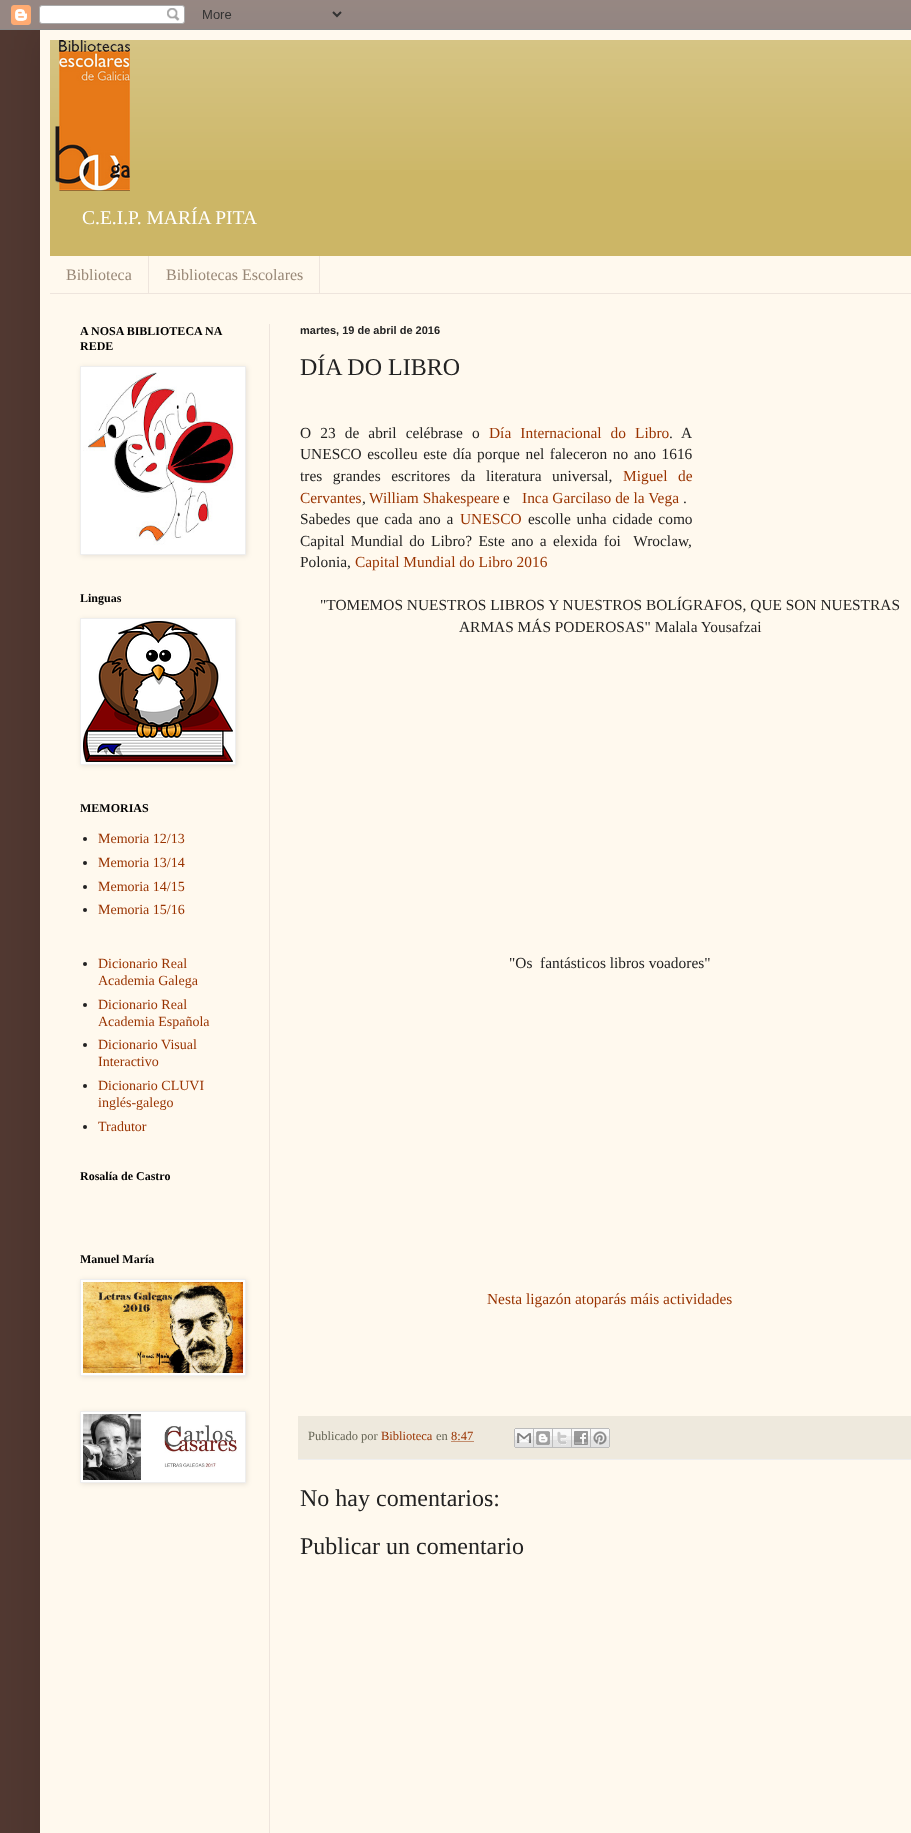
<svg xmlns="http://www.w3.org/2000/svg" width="911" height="1833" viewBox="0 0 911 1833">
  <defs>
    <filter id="blur1" x="-50%" y="-200%" width="200%" height="500%"><feGaussianBlur stdDeviation="20"/></filter>
    <filter id="blur2" x="-50%" y="-200%" width="200%" height="500%"><feGaussianBlur stdDeviation="2.5"/></filter>
  </defs>
  <rect width="100%" height="100%" fill="#513831"/>
  <rect x="40" y="30" width="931" height="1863" fill="#000000" fill-opacity="0.15" filter="url(#blur1)"/>
  <image x="0" y="0" width="911" height="30" href="img1.png"/>
  <rect x="40" y="30" width="871" height="1803" fill="#fff9ee"/>
  <rect x="50" y="40" width="861" height="216" fill="#ccb666"/>
  <image x="50" y="40" width="861" height="130" href="img2.png"/>
  <image x="55" y="40" width="75" height="151" href="img3.png"/>
  <text x="82" y="224" font-family="Liberation Serif" font-size="19.5" fill="#ffffff">C.E.I.P. MARÍA PITA</text>
  <rect x="50" y="293" width="861" height="1" fill="#eee5dd"/>
  <rect x="148" y="256" width="1" height="37" fill="#eee5dd"/>
  <text x="66" y="280" font-family="Liberation Serif" font-size="16" fill="#998877">Biblioteca</text>
  <rect x="319" y="256" width="1" height="37" fill="#eee5dd"/>
  <text x="166" y="280" font-family="Liberation Serif" font-size="16" fill="#998877">Bibliotecas Escolares</text>
  <rect x="269" y="324" width="1" height="1509" fill="#eee5dd"/>
  <text x="80" y="335" font-family="Liberation Serif" font-size="12" font-weight="bold" fill="#000000">A NOSA BIBLIOTECA NA</text>
  <text x="80" y="350" font-family="Liberation Serif" font-size="12" font-weight="bold" fill="#000000">REDE</text>
  <rect x="81" y="367" width="166" height="189" fill="#000000" fill-opacity="0.1" filter="url(#blur2)"/>
  <rect x="80.5" y="366.5" width="165" height="188" fill="#ffffff" stroke="#eeeeee"/>
  <image x="83" y="372" width="153" height="173" href="img4.png"/>
  <text x="80" y="602" font-family="Liberation Serif" font-size="12" font-weight="bold" fill="#000000">Linguas</text>
  <rect x="81" y="619" width="156" height="147" fill="#000000" fill-opacity="0.1" filter="url(#blur2)"/>
  <rect x="80.5" y="618.5" width="155" height="146" fill="#ffffff" stroke="#eeeeee"/>
  <image x="83" y="621" width="150" height="141" href="img5.png"/>
  <text x="80" y="812" font-family="Liberation Serif" font-size="12" font-weight="bold" fill="#000000">MEMORIAS</text>
  <circle cx="85" cy="839" r="2" fill="#222222"/>
  <text x="98" y="843" font-family="Liberation Serif" font-size="14" fill="#993300">Memoria 12/13</text>
  <circle cx="85" cy="863" r="2" fill="#222222"/>
  <text x="98" y="867" font-family="Liberation Serif" font-size="14" fill="#993300">Memoria 13/14</text>
  <circle cx="85" cy="887" r="2" fill="#222222"/>
  <text x="98" y="891" font-family="Liberation Serif" font-size="14" fill="#993300">Memoria 14/15</text>
  <circle cx="85" cy="910" r="2" fill="#222222"/>
  <text x="98" y="914" font-family="Liberation Serif" font-size="14" fill="#993300">Memoria 15/16</text>
  <circle cx="85" cy="964" r="2" fill="#222222"/>
  <text x="98" y="968" font-family="Liberation Serif" font-size="14" fill="#993300">Dicionario Real</text>
  <text x="98" y="985" font-family="Liberation Serif" font-size="14" fill="#993300">Academia Galega</text>
  <circle cx="85" cy="1005" r="2" fill="#222222"/>
  <text x="98" y="1009" font-family="Liberation Serif" font-size="14" fill="#993300">Dicionario Real</text>
  <text x="98" y="1026" font-family="Liberation Serif" font-size="14" fill="#993300">Academia Española</text>
  <circle cx="85" cy="1045" r="2" fill="#222222"/>
  <text x="98" y="1049" font-family="Liberation Serif" font-size="14" fill="#993300">Dicionario Visual</text>
  <text x="98" y="1066" font-family="Liberation Serif" font-size="14" fill="#993300">Interactivo</text>
  <circle cx="85" cy="1086" r="2" fill="#222222"/>
  <text x="98" y="1090" font-family="Liberation Serif" font-size="14" fill="#993300">Dicionario CLUVI</text>
  <text x="98" y="1107" font-family="Liberation Serif" font-size="14" fill="#993300">inglés-galego</text>
  <circle cx="85" cy="1127" r="2" fill="#222222"/>
  <text x="98" y="1131" font-family="Liberation Serif" font-size="14" fill="#993300">Tradutor</text>
  <text x="80" y="1180" font-family="Liberation Serif" font-size="12" font-weight="bold" fill="#000000">Rosalía de Castro</text>
  <text x="80" y="1263" font-family="Liberation Serif" font-size="12" font-weight="bold" fill="#000000">Manuel María</text>
  <rect x="81" y="1280" width="166" height="97" fill="#000000" fill-opacity="0.1" filter="url(#blur2)"/>
  <rect x="80.5" y="1279.5" width="165" height="96" fill="#ffffff" stroke="#eeeeee"/>
  <image x="83" y="1282" width="160" height="91" href="img6.png"/>
  <rect x="81" y="1412" width="166" height="72" fill="#000000" fill-opacity="0.1" filter="url(#blur2)"/>
  <rect x="80.5" y="1411.5" width="165" height="71" fill="#ffffff" stroke="#eeeeee"/>
  <image x="83" y="1414" width="154" height="66" href="img7.png"/>
  <text x="300" y="334" font-family="Liberation Sans" font-size="11" font-weight="bold" fill="#222222">martes, 19 de abril de 2016</text>
  <text x="300" y="375" font-family="Liberation Serif" font-size="24" fill="#222222">DÍA DO LIBRO</text>
  <text x="300" y="438" word-spacing="5.25" font-family="Liberation Serif" font-size="15.4" fill="#222222">O 23 de abril celébrase o</text>
  <text x="489" y="438" word-spacing="5.25" font-family="Liberation Serif" font-size="15.4" fill="#993300">Día Internacional do Libro</text>
  <text x="669" y="438" word-spacing="5.25" font-family="Liberation Serif" font-size="15.4" fill="#222222">. A</text>
  <text x="300" y="459" word-spacing="1.75" font-family="Liberation Serif" font-size="15.4" fill="#222222">UNESCO escolleu este día porque nel faleceron no ano 1616</text>
  <text x="300" y="481" word-spacing="6.75" font-family="Liberation Serif" font-size="15.4" fill="#222222">tres grandes escritores da literatura universal,</text>
  <text x="623" y="481" word-spacing="6.75" font-family="Liberation Serif" font-size="15.4" fill="#993300">Miguel de</text>
  <text x="300" y="503" font-family="Liberation Serif" font-size="15.4" fill="#993300">Cervantes</text>
  <text x="362" y="503" font-family="Liberation Serif" font-size="15.4" fill="#222222">,</text>
  <text x="369" y="503" font-family="Liberation Serif" font-size="15.4" fill="#993300">William Shakespeare</text>
  <text x="503" y="503" font-family="Liberation Serif" font-size="15.4" fill="#222222">e</text>
  <text x="522" y="503" font-family="Liberation Serif" font-size="15.4" fill="#993300">Inca Garcilaso de la Vega</text>
  <text x="683" y="503" font-family="Liberation Serif" font-size="15.4" fill="#222222">.</text>
  <text x="300" y="524" word-spacing="2" font-family="Liberation Serif" font-size="15.4" fill="#222222">Sabedes que cada ano a</text>
  <text x="460" y="524" font-family="Liberation Serif" font-size="15.4" fill="#993300">UNESCO</text>
  <text x="528" y="524" word-spacing="2" font-family="Liberation Serif" font-size="15.4" fill="#222222">escolle unha cidade como</text>
  <text x="300" y="546" word-spacing="2.5" font-family="Liberation Serif" font-size="15.4" fill="#222222" xml:space="preserve">Capital Mundial do Libro? Este ano a elexida foi  Wroclaw,</text>
  <text x="300" y="567" font-family="Liberation Serif" font-size="15.4" fill="#222222">Polonia,</text>
  <text x="355" y="567" font-family="Liberation Serif" font-size="15.4" fill="#993300">Capital Mundial do Libro 2016</text>
  <text x="320" y="610" font-family="Liberation Serif" font-size="15.4" fill="#222222">"TOMEMOS NUESTROS LIBROS Y NUESTROS BOLÍGRAFOS, QUE SON NUESTRAS</text>
  <text x="459" y="632" font-family="Liberation Serif" font-size="15.4" fill="#222222">ARMAS MÁS PODEROSAS" Malala Yousafzai</text>
  <text x="509" y="968" font-family="Liberation Serif" font-size="15.4" fill="#222222" xml:space="preserve">"Os  fantásticos libros voadores"</text>
  <text x="487" y="1304" font-family="Liberation Serif" font-size="15.4" fill="#993300">Nesta ligazón atoparás máis actividades</text>
  <rect x="298" y="1416" width="613" height="43" fill="#eee9dd"/>
  <rect x="298" y="1459" width="613" height="1" fill="#eeeeee"/>
  <text x="308" y="1440" font-family="Liberation Serif" font-size="12.5" fill="#666555">Publicado por</text>
  <text x="381" y="1440" font-family="Liberation Serif" font-size="12.5" fill="#993300">Biblioteca</text>
  <text x="436" y="1440" font-family="Liberation Serif" font-size="12.5" fill="#666555">en</text>
  <path d="M451.5 1441.5H474" fill="none" stroke="#993300" stroke-dasharray="1 1"/>
  <text x="451" y="1440" font-family="Liberation Serif" font-size="12.5" fill="#993300">8:47</text>
  <image x="514" y="1428" width="20" height="20" href="img8.png"/>
  <image x="534" y="1428" width="19" height="20" href="img9.png"/>
  <image x="553" y="1428" width="19" height="20" href="img10.png"/>
  <image x="572" y="1428" width="19" height="20" href="img11.png"/>
  <image x="591" y="1428" width="19" height="20" href="img12.png"/>
  <text x="300" y="1506" font-family="Liberation Serif" font-size="24" fill="#222222">No hay comentarios:</text>
  <text x="300" y="1554" font-family="Liberation Serif" font-size="24" fill="#222222">Publicar un comentario</text>
</svg>
